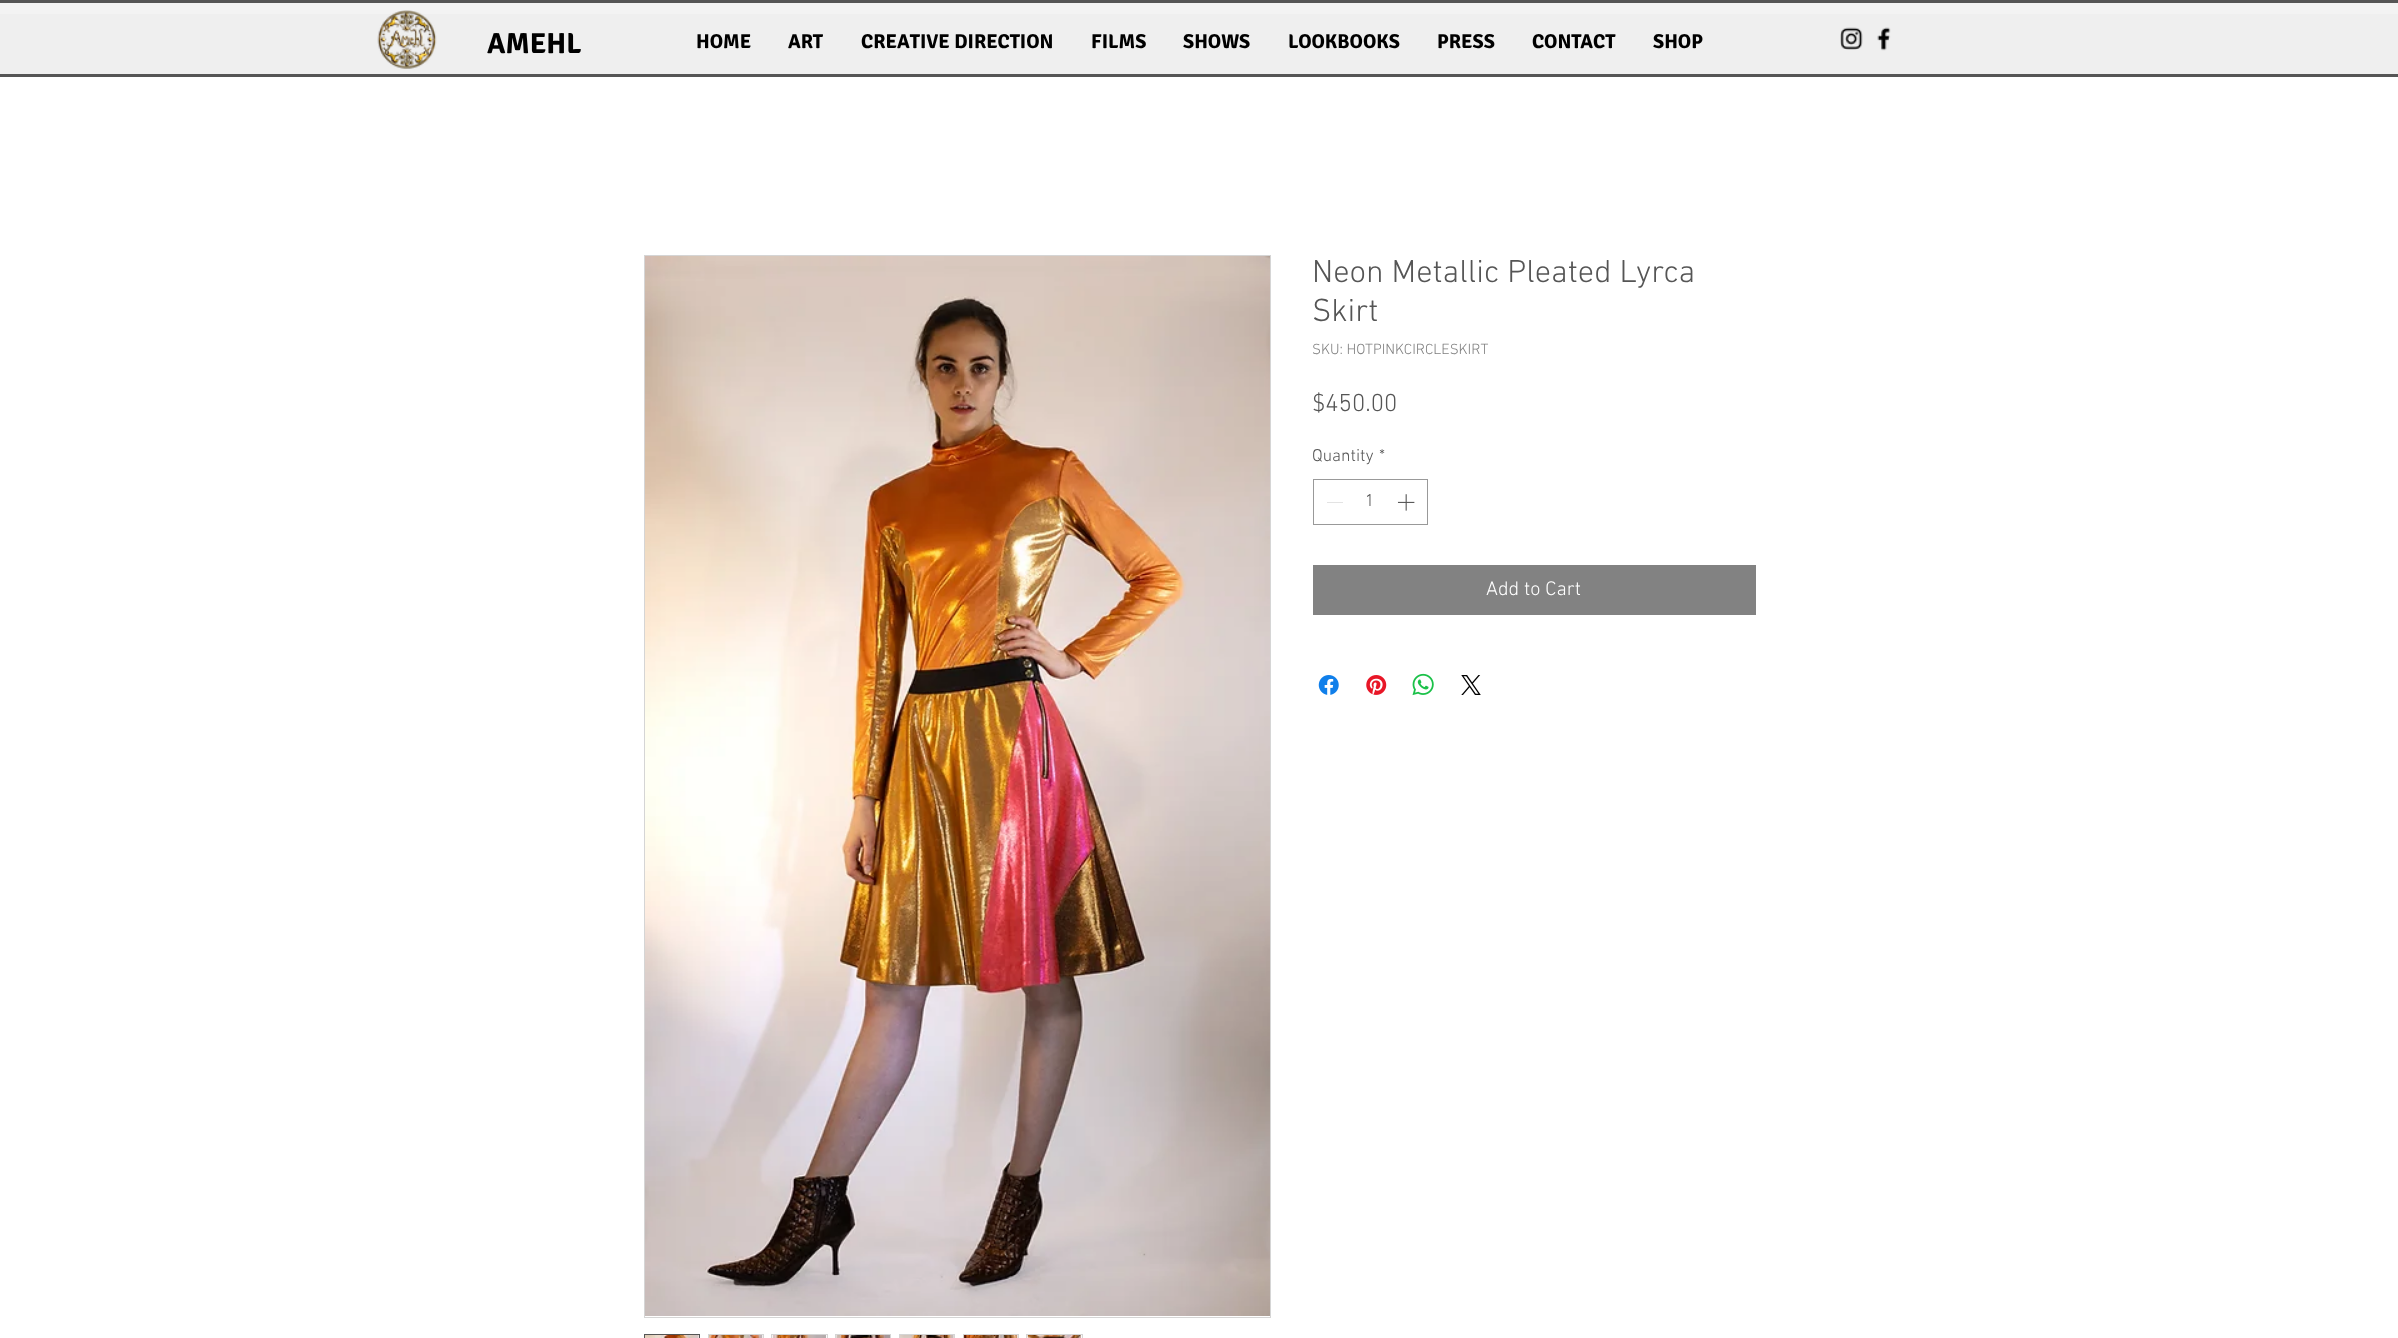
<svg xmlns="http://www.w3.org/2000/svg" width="2398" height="1338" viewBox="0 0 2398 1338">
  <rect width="100%" height="100%" fill="#ffffff"/>
  <rect x="0" y="14" width="2398" height="60" fill="#efefef"/>
  <rect x="0" y="3" width="2398" height="11" fill="#f3f3f3"/>
  <rect x="0" y="0" width="2398" height="3" fill="#555555"/>
  <rect x="0" y="74" width="2398" height="3" fill="#555555"/>
  <image x="377" y="10" width="60" height="59" href="img1.png"/>
  <text x="487" y="53" font-family="Signika" font-size="29" font-weight="bold" fill="#000000">AMEHL</text>
  <text x="696" y="48" font-family="Signika" font-size="20" font-weight="bold" fill="#000000">HOME</text>
  <text x="788" y="48" font-family="Signika" font-size="20" font-weight="bold" fill="#000000">ART</text>
  <text x="861" y="48" font-family="Signika" font-size="20" font-weight="bold" fill="#000000">CREATIVE DIRECTION</text>
  <text x="1091" y="48" font-family="Signika" font-size="20" font-weight="bold" fill="#000000">FILMS</text>
  <text x="1183" y="48" font-family="Signika" font-size="20" font-weight="bold" fill="#000000">SHOWS</text>
  <text x="1288" y="48" font-family="Signika" font-size="20" font-weight="bold" fill="#000000">LOOKBOOKS</text>
  <text x="1437" y="48" font-family="Signika" font-size="20" font-weight="bold" fill="#000000">PRESS</text>
  <text x="1532" y="48" font-family="Signika" font-size="20" font-weight="bold" fill="#000000">CONTACT</text>
  <text x="1653" y="48" font-family="Signika" font-size="20" font-weight="bold" fill="#000000">SHOP</text>
  <image x="1840" y="27" width="23" height="23" href="img2.png"/>
  <image x="1877" y="27" width="14" height="24" href="img3.png"/>
  <rect x="644.5" y="255.5" width="626" height="1062" fill="none" stroke="#d5d5d5"/>
  <image x="645" y="256" width="625" height="1060" href="img4.png"/>
  <rect x="644.5" y="1334.5" width="55" height="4" fill="none" stroke="#555555"/>
  <image x="645" y="1335" width="54" height="3" href="img5.png"/>
  <rect x="708.5" y="1334.5" width="55" height="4" fill="none" stroke="#d5d5d5"/>
  <image x="709" y="1335" width="54" height="3" href="img6.png"/>
  <rect x="771.5" y="1334.5" width="56" height="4" fill="none" stroke="#d5d5d5"/>
  <image x="772" y="1335" width="55" height="3" href="img7.png"/>
  <rect x="835.5" y="1334.5" width="55" height="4" fill="none" stroke="#d5d5d5"/>
  <image x="836" y="1335" width="54" height="3" href="img8.png"/>
  <rect x="899.5" y="1334.5" width="55" height="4" fill="none" stroke="#d5d5d5"/>
  <image x="900" y="1335" width="54" height="3" href="img9.png"/>
  <rect x="963.5" y="1334.5" width="55" height="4" fill="none" stroke="#d5d5d5"/>
  <image x="963" y="1335" width="55" height="3" href="img10.png"/>
  <rect x="1026.5" y="1334.5" width="56" height="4" fill="none" stroke="#d5d5d5"/>
  <image x="1027" y="1335" width="55" height="3" href="img11.png"/>
  <text x="1312" y="282" font-family="'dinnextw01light'" font-size="32.5" font-weight="300" fill="#555555">Neon Metallic Pleated Lyrca</text>
  <text x="1312" y="321" font-family="'dinnextw01light'" font-size="32.5" font-weight="300" fill="#555555">Skirt</text>
  <text x="1312" y="354" font-family="'dinnextw01light'" font-size="15" font-weight="300" fill="#808080">SKU: HOTPINKCIRCLESKIRT</text>
  <text x="1312" y="411" font-family="'dinnextw01light'" font-size="25" font-weight="300" fill="#555555">$450.00</text>
  <text x="1312" y="461" font-family="'dinnextw01light'" font-size="17.5" font-weight="300" fill="#555555">Quantity</text>
  <text x="1379" y="461" font-family="'dinnextw01light'" font-size="17.5" font-weight="300" fill="#555555">*</text>
  <rect x="1313.5" y="479.5" width="114" height="45" fill="none" stroke="#999999"/>
  <rect x="1327" y="502" width="16" height="1" fill="#e3e3e3"/>
  <text x="1365" y="506" font-family="'dinnextw01light'" font-size="17.5" font-weight="300" fill="#555555">1</text>
  <image x="1397" y="494" width="18" height="17" href="img12.png"/>
  <rect x="1313" y="565" width="443" height="50" fill="#828282"/>
  <text x="1486" y="595" font-family="'dinnextw01light'" font-size="20" font-weight="300" fill="#ffffff">Add to Cart</text>
  <image x="1318" y="675" width="21" height="20" href="img13.png"/>
  <image x="1366" y="675" width="21" height="20" href="img14.png"/>
  <image x="1412" y="673" width="22" height="23" href="img15.png"/>
  <image x="1461" y="675" width="20" height="20" href="img16.png"/>
</svg>
